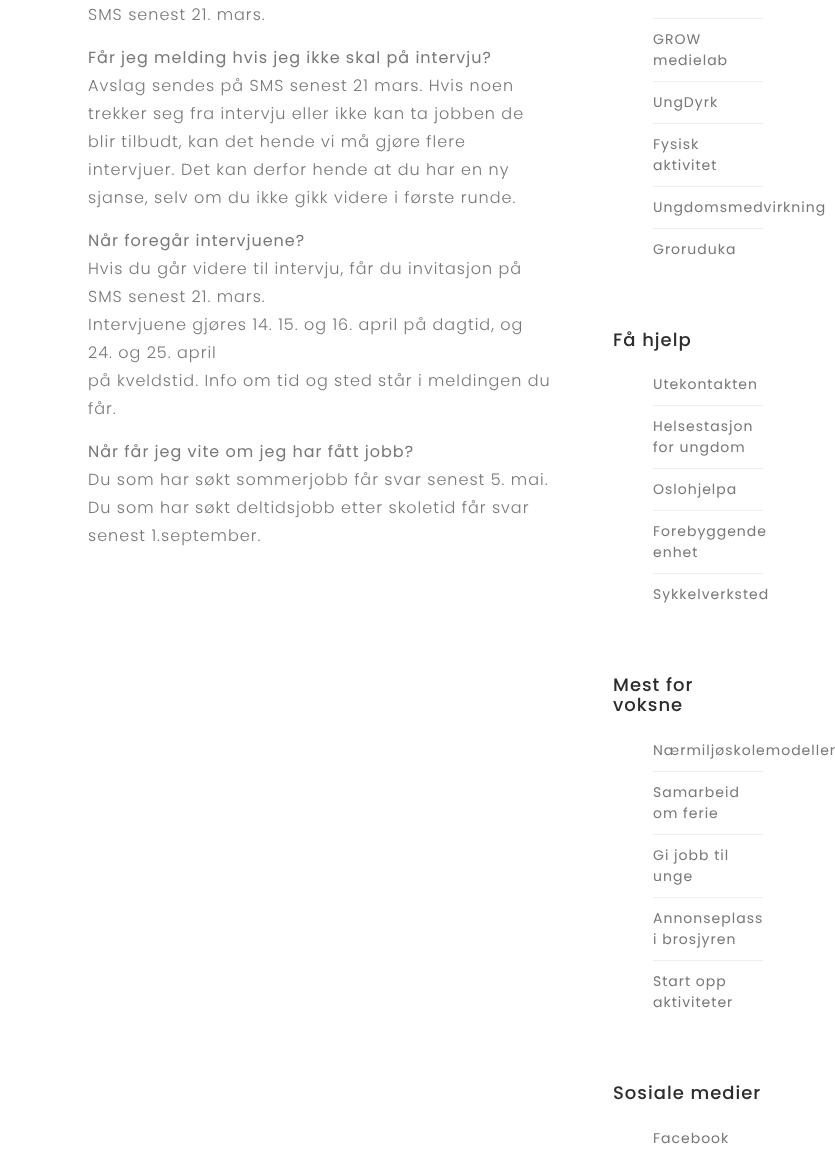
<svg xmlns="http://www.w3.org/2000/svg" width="835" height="1154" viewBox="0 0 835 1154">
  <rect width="100%" height="100%" fill="#ffffff"/>
  <text x="88" y="20" font-family="Poppins" font-size="16" font-weight="300" letter-spacing="1" fill="#787878">SMS senest 21. mars.</text>
  <text x="88" y="63" font-family="Poppins" font-size="16" letter-spacing="1" fill="#787878">Får jeg melding hvis jeg ikke skal på intervju?</text>
  <text x="88" y="91" font-family="Poppins" font-size="16" font-weight="300" letter-spacing="1" fill="#787878">Avslag sendes på SMS senest 21 mars. Hvis noen</text>
  <text x="88" y="119" font-family="Poppins" font-size="16" font-weight="300" letter-spacing="1" fill="#787878">trekker seg fra intervju eller ikke kan ta jobben de</text>
  <text x="88" y="147" font-family="Poppins" font-size="16" font-weight="300" letter-spacing="1" fill="#787878">blir tilbudt, kan det hende vi må gjøre flere</text>
  <text x="88" y="175" font-family="Poppins" font-size="16" font-weight="300" letter-spacing="1" fill="#787878">intervjuer. Det kan derfor hende at du har en ny</text>
  <text x="88" y="203" font-family="Poppins" font-size="16" font-weight="300" letter-spacing="1" fill="#787878">sjanse, selv om du ikke gikk videre i første runde.</text>
  <text x="88" y="246" font-family="Poppins" font-size="16" letter-spacing="1" fill="#787878">Når foregår intervjuene?</text>
  <text x="88" y="274" font-family="Poppins" font-size="16" font-weight="300" letter-spacing="1" fill="#787878">Hvis du går videre til intervju, får du invitasjon på</text>
  <text x="88" y="302" font-family="Poppins" font-size="16" font-weight="300" letter-spacing="1" fill="#787878">SMS senest 21. mars.</text>
  <text x="88" y="330" font-family="Poppins" font-size="16" font-weight="300" letter-spacing="1" fill="#787878">Intervjuene gjøres 14. 15. og 16. april på dagtid, og</text>
  <text x="88" y="358" font-family="Poppins" font-size="16" font-weight="300" letter-spacing="1" fill="#787878">24. og 25. april</text>
  <text x="88" y="386" font-family="Poppins" font-size="16" font-weight="300" letter-spacing="1" fill="#787878">på kveldstid. Info om tid og sted står i meldingen du</text>
  <text x="88" y="414" font-family="Poppins" font-size="16" font-weight="300" letter-spacing="1" fill="#787878">får.</text>
  <text x="88" y="457" font-family="Poppins" font-size="16" letter-spacing="1" fill="#787878">Når får jeg vite om jeg har fått jobb?</text>
  <text x="88" y="485" font-family="Poppins" font-size="16" font-weight="300" letter-spacing="1" fill="#787878">Du som har søkt sommerjobb får svar senest 5. mai.</text>
  <text x="88" y="513" font-family="Poppins" font-size="16" font-weight="300" letter-spacing="1" fill="#787878">Du som har søkt deltidsjobb etter skoletid får svar</text>
  <text x="88" y="541" font-family="Poppins" font-size="16" font-weight="300" letter-spacing="1" fill="#787878">senest 1.september.</text>
  <rect x="653" y="18" width="110" height="1" fill="#eeeeee"/>
  <rect x="653" y="81" width="110" height="1" fill="#eeeeee"/>
  <text x="653" y="44" font-family="Poppins" font-size="14" letter-spacing="1" fill="#787878">GROW</text>
  <text x="653" y="65" font-family="Poppins" font-size="14" letter-spacing="1" fill="#787878">medielab</text>
  <rect x="653" y="123" width="110" height="1" fill="#eeeeee"/>
  <text x="653" y="107" font-family="Poppins" font-size="14" letter-spacing="1" fill="#787878">UngDyrk</text>
  <rect x="653" y="186" width="110" height="1" fill="#eeeeee"/>
  <text x="653" y="149" font-family="Poppins" font-size="14" letter-spacing="1" fill="#787878">Fysisk</text>
  <text x="653" y="170" font-family="Poppins" font-size="14" letter-spacing="1" fill="#787878">aktivitet</text>
  <rect x="653" y="228" width="110" height="1" fill="#eeeeee"/>
  <text x="653" y="212" font-family="Poppins" font-size="14" letter-spacing="1" fill="#787878">Ungdomsmedvirkning</text>
  <text x="653" y="254" font-family="Poppins" font-size="14" letter-spacing="1" fill="#787878">Groruduka</text>
  <text x="613" y="346" font-family="Poppins" font-size="18" font-weight="500" letter-spacing="1" fill="#2c2c2c">Få hjelp</text>
  <rect x="653" y="405" width="110" height="1" fill="#eeeeee"/>
  <text x="653" y="389" font-family="Poppins" font-size="14" letter-spacing="1" fill="#787878">Utekontakten</text>
  <rect x="653" y="468" width="110" height="1" fill="#eeeeee"/>
  <text x="653" y="431" font-family="Poppins" font-size="14" letter-spacing="1" fill="#787878">Helsestasjon</text>
  <text x="653" y="452" font-family="Poppins" font-size="14" letter-spacing="1" fill="#787878">for ungdom</text>
  <rect x="653" y="510" width="110" height="1" fill="#eeeeee"/>
  <text x="653" y="494" font-family="Poppins" font-size="14" letter-spacing="1" fill="#787878">Oslohjelpa</text>
  <rect x="653" y="573" width="110" height="1" fill="#eeeeee"/>
  <text x="653" y="536" font-family="Poppins" font-size="14" letter-spacing="1" fill="#787878">Forebyggende</text>
  <text x="653" y="557" font-family="Poppins" font-size="14" letter-spacing="1" fill="#787878">enhet</text>
  <text x="653" y="599" font-family="Poppins" font-size="14" letter-spacing="1" fill="#787878">Sykkelverksted</text>
  <text x="613" y="691" font-family="Poppins" font-size="18" font-weight="500" letter-spacing="1" fill="#2c2c2c">Mest for</text>
  <text x="613" y="711" font-family="Poppins" font-size="18" font-weight="500" letter-spacing="1" fill="#2c2c2c">voksne</text>
  <rect x="653" y="771" width="110" height="1" fill="#eeeeee"/>
  <text x="653" y="755" font-family="Poppins" font-size="14" letter-spacing="1" fill="#787878">Nærmiljøskolemodellen</text>
  <rect x="653" y="834" width="110" height="1" fill="#eeeeee"/>
  <text x="653" y="797" font-family="Poppins" font-size="14" letter-spacing="1" fill="#787878">Samarbeid</text>
  <text x="653" y="818" font-family="Poppins" font-size="14" letter-spacing="1" fill="#787878">om ferie</text>
  <rect x="653" y="897" width="110" height="1" fill="#eeeeee"/>
  <text x="653" y="860" font-family="Poppins" font-size="14" letter-spacing="1" fill="#787878">Gi jobb til</text>
  <text x="653" y="881" font-family="Poppins" font-size="14" letter-spacing="1" fill="#787878">unge</text>
  <rect x="653" y="960" width="110" height="1" fill="#eeeeee"/>
  <text x="653" y="923" font-family="Poppins" font-size="14" letter-spacing="1" fill="#787878">Annonseplass</text>
  <text x="653" y="944" font-family="Poppins" font-size="14" letter-spacing="1" fill="#787878">i brosjyren</text>
  <text x="653" y="986" font-family="Poppins" font-size="14" letter-spacing="1" fill="#787878">Start opp</text>
  <text x="653" y="1007" font-family="Poppins" font-size="14" letter-spacing="1" fill="#787878">aktiviteter</text>
  <text x="613" y="1099" font-family="Poppins" font-size="18" font-weight="500" letter-spacing="1" fill="#2c2c2c">Sosiale medier</text>
  <text x="653" y="1143" font-family="Poppins" font-size="14" letter-spacing="1" fill="#787878">Facebook</text>
</svg>
